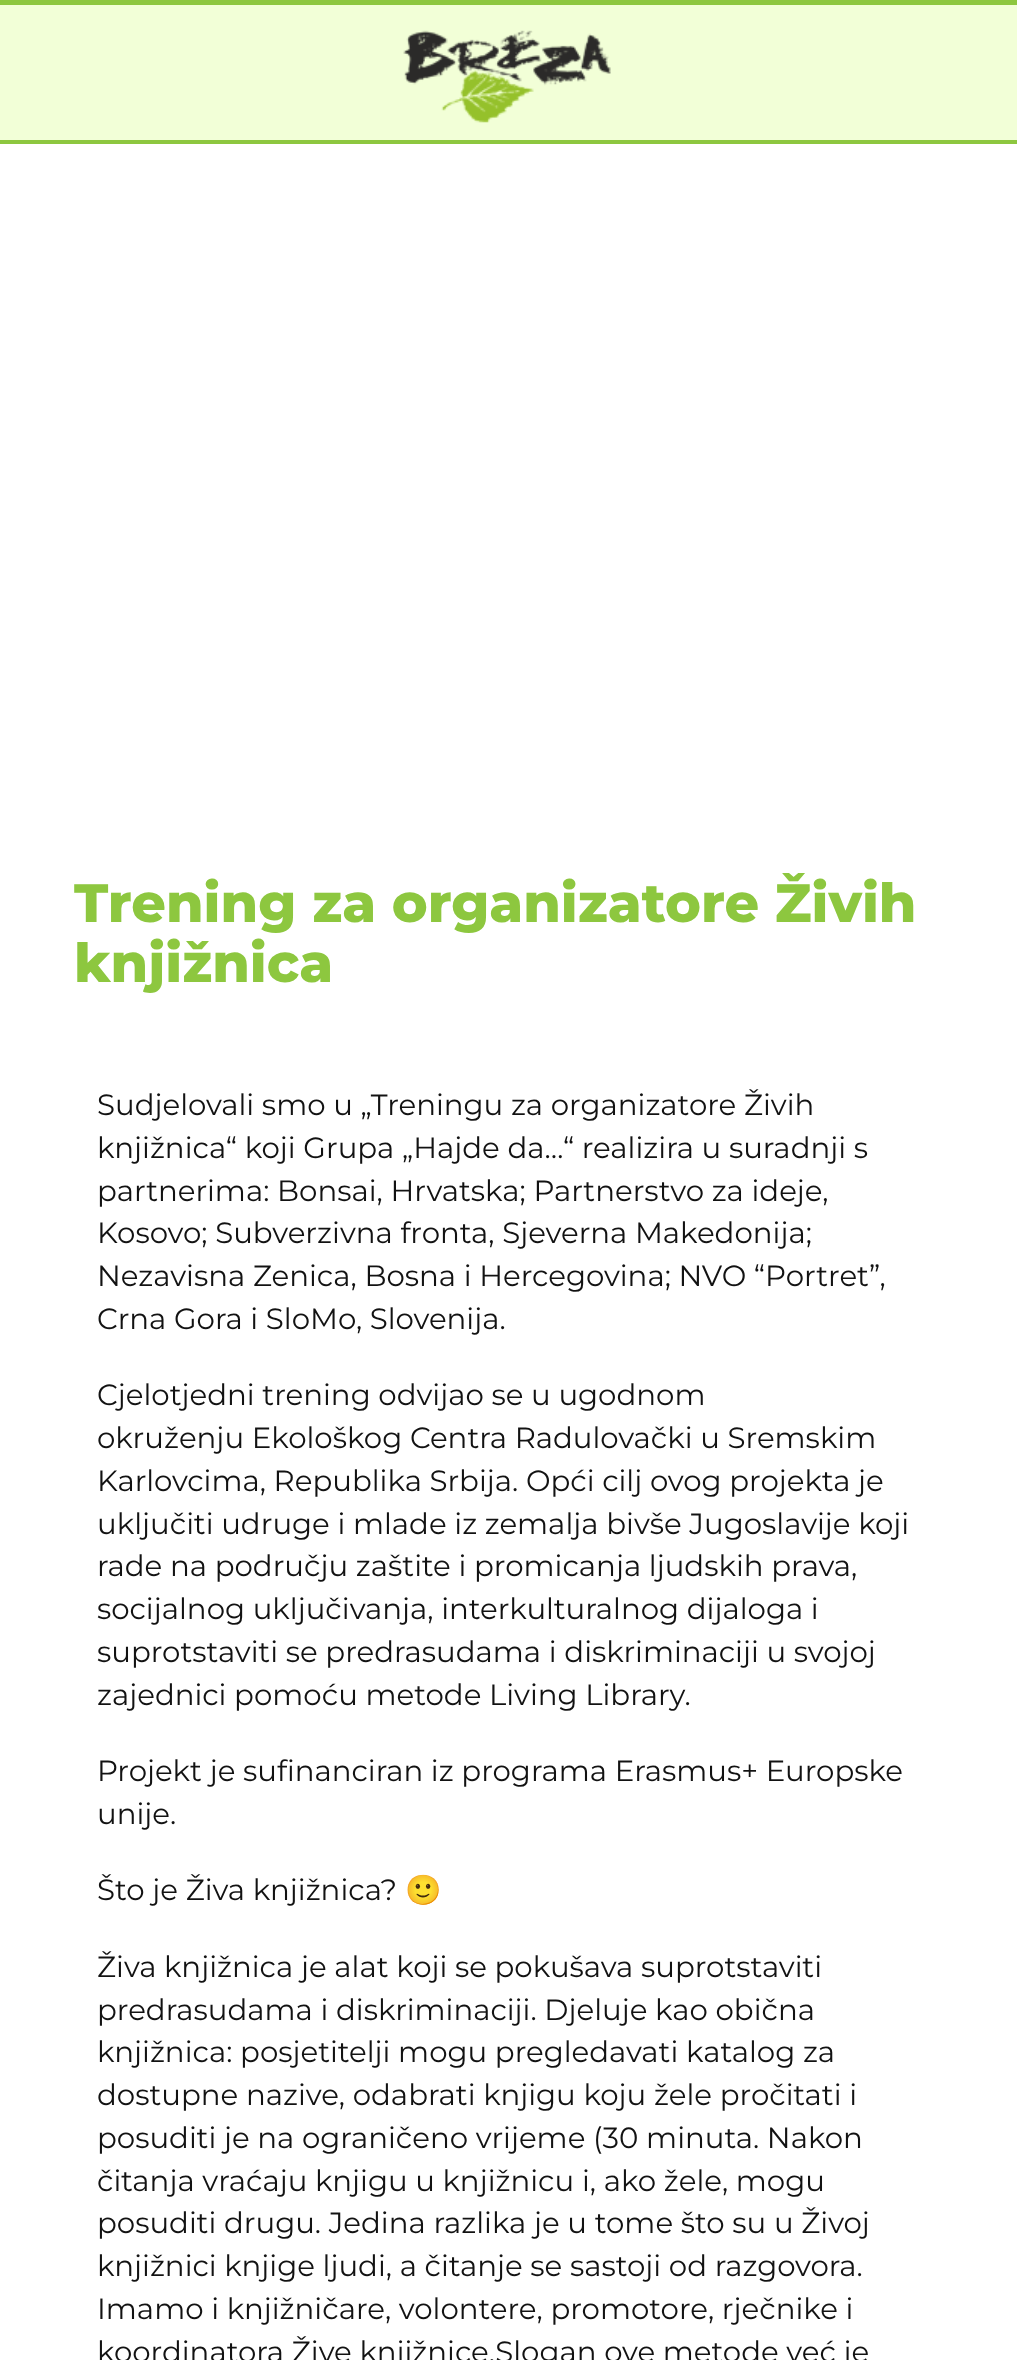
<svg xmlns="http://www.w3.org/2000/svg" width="1017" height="2360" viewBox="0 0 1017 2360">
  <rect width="100%" height="100%" fill="#f2ffd7"/>
  <rect x="0" y="0" width="1017" height="5" fill="#8dc73f"/>
  <rect x="0" y="140" width="1017" height="4" fill="#8dc73f"/>
  <image x="403" y="30" width="208" height="93" href="img1.png"/>
  <rect x="0" y="144" width="1017" height="2216" fill="#ffffff"/>
  <text x="74" y="922" font-family="Montserrat" font-size="54" font-weight="800" fill="#8dc73f">Trening za organizatore Živih</text>
  <text x="74" y="982" font-family="Montserrat" font-size="54" font-weight="800" fill="#8dc73f">knjižnica</text>
  <text x="97" y="1115" font-family="Montserrat" font-size="29.25" fill="#121212">Sudjelovali smo u „Treningu za organizatore Živih</text>
  <text x="97" y="1158" font-family="Montserrat" font-size="29.25" fill="#121212">knjižnica“ koji Grupa „Hajde da…“ realizira u suradnji s</text>
  <text x="97" y="1201" font-family="Montserrat" font-size="29.25" fill="#121212">partnerima: Bonsai, Hrvatska; Partnerstvo za ideje,</text>
  <text x="97" y="1243" font-family="Montserrat" font-size="29.25" fill="#121212">Kosovo; Subverzivna fronta, Sjeverna Makedonija;</text>
  <text x="97" y="1286" font-family="Montserrat" font-size="29.25" fill="#121212">Nezavisna Zenica, Bosna i Hercegovina; NVO “Portret”,</text>
  <text x="97" y="1329" font-family="Montserrat" font-size="29.25" fill="#121212">Crna Gora i SloMo, Slovenija.</text>
  <text x="97" y="1405" font-family="Montserrat" font-size="29.25" fill="#121212">Cjelotjedni trening odvijao se u ugodnom</text>
  <text x="97" y="1448" font-family="Montserrat" font-size="29.25" fill="#121212">okruženju Ekološkog Centra Radulovački u Sremskim</text>
  <text x="97" y="1491" font-family="Montserrat" font-size="29.25" fill="#121212">Karlovcima, Republika Srbija. Opći cilj ovog projekta je</text>
  <text x="97" y="1534" font-family="Montserrat" font-size="29.25" fill="#121212">uključiti udruge i mlade iz zemalja bivše Jugoslavije koji</text>
  <text x="97" y="1576" font-family="Montserrat" font-size="29.25" fill="#121212">rade na području zaštite i promicanja ljudskih prava,</text>
  <text x="97" y="1619" font-family="Montserrat" font-size="29.25" fill="#121212">socijalnog uključivanja, interkulturalnog dijaloga i</text>
  <text x="97" y="1662" font-family="Montserrat" font-size="29.25" fill="#121212">suprotstaviti se predrasudama i diskriminaciji u svojoj</text>
  <text x="97" y="1705" font-family="Montserrat" font-size="29.25" fill="#121212">zajednici pomoću metode Living Library.</text>
  <text x="97" y="1781" font-family="Montserrat" font-size="29.25" fill="#121212">Projekt je sufinanciran iz programa Erasmus+ Europske</text>
  <text x="97" y="1824" font-family="Montserrat" font-size="29.25" fill="#121212">unije.</text>
  <text x="97" y="1900" font-family="Montserrat" font-size="29.25" fill="#121212">Što je Živa knjižnica?</text>
  <text x="405" y="1900" font-family="Noto Color Emoji" font-size="29.25" fill="#121212">🙂</text>
  <text x="97" y="1977" font-family="Montserrat" font-size="29.25" fill="#121212">Živa knjižnica je alat koji se pokušava suprotstaviti</text>
  <text x="97" y="2020" font-family="Montserrat" font-size="29.25" fill="#121212">predrasudama i diskriminaciji. Djeluje kao obična</text>
  <text x="97" y="2062" font-family="Montserrat" font-size="29.25" fill="#121212">knjižnica: posjetitelji mogu pregledavati katalog za</text>
  <text x="97" y="2105" font-family="Montserrat" font-size="29.25" fill="#121212">dostupne nazive, odabrati knjigu koju žele pročitati i</text>
  <text x="97" y="2148" font-family="Montserrat" font-size="29.25" fill="#121212">posuditi je na ograničeno vrijeme (30 minuta. Nakon</text>
  <text x="97" y="2191" font-family="Montserrat" font-size="29.25" fill="#121212">čitanja vraćaju knjigu u knjižnicu i, ako žele, mogu</text>
  <text x="97" y="2233" font-family="Montserrat" font-size="29.25" fill="#121212">posuditi drugu. Jedina razlika je u tome što su u Živoj</text>
  <text x="97" y="2276" font-family="Montserrat" font-size="29.25" fill="#121212">knjižnici knjige ljudi, a čitanje se sastoji od razgovora.</text>
  <text x="97" y="2319" font-family="Montserrat" font-size="29.25" fill="#121212">Imamo i knjižničare, volontere, promotore, rječnike i</text>
  <text x="97" y="2362" font-family="Montserrat" font-size="29.25" fill="#121212">koordinatora Žive knjižnice.Slogan ove metode već je</text>
</svg>
